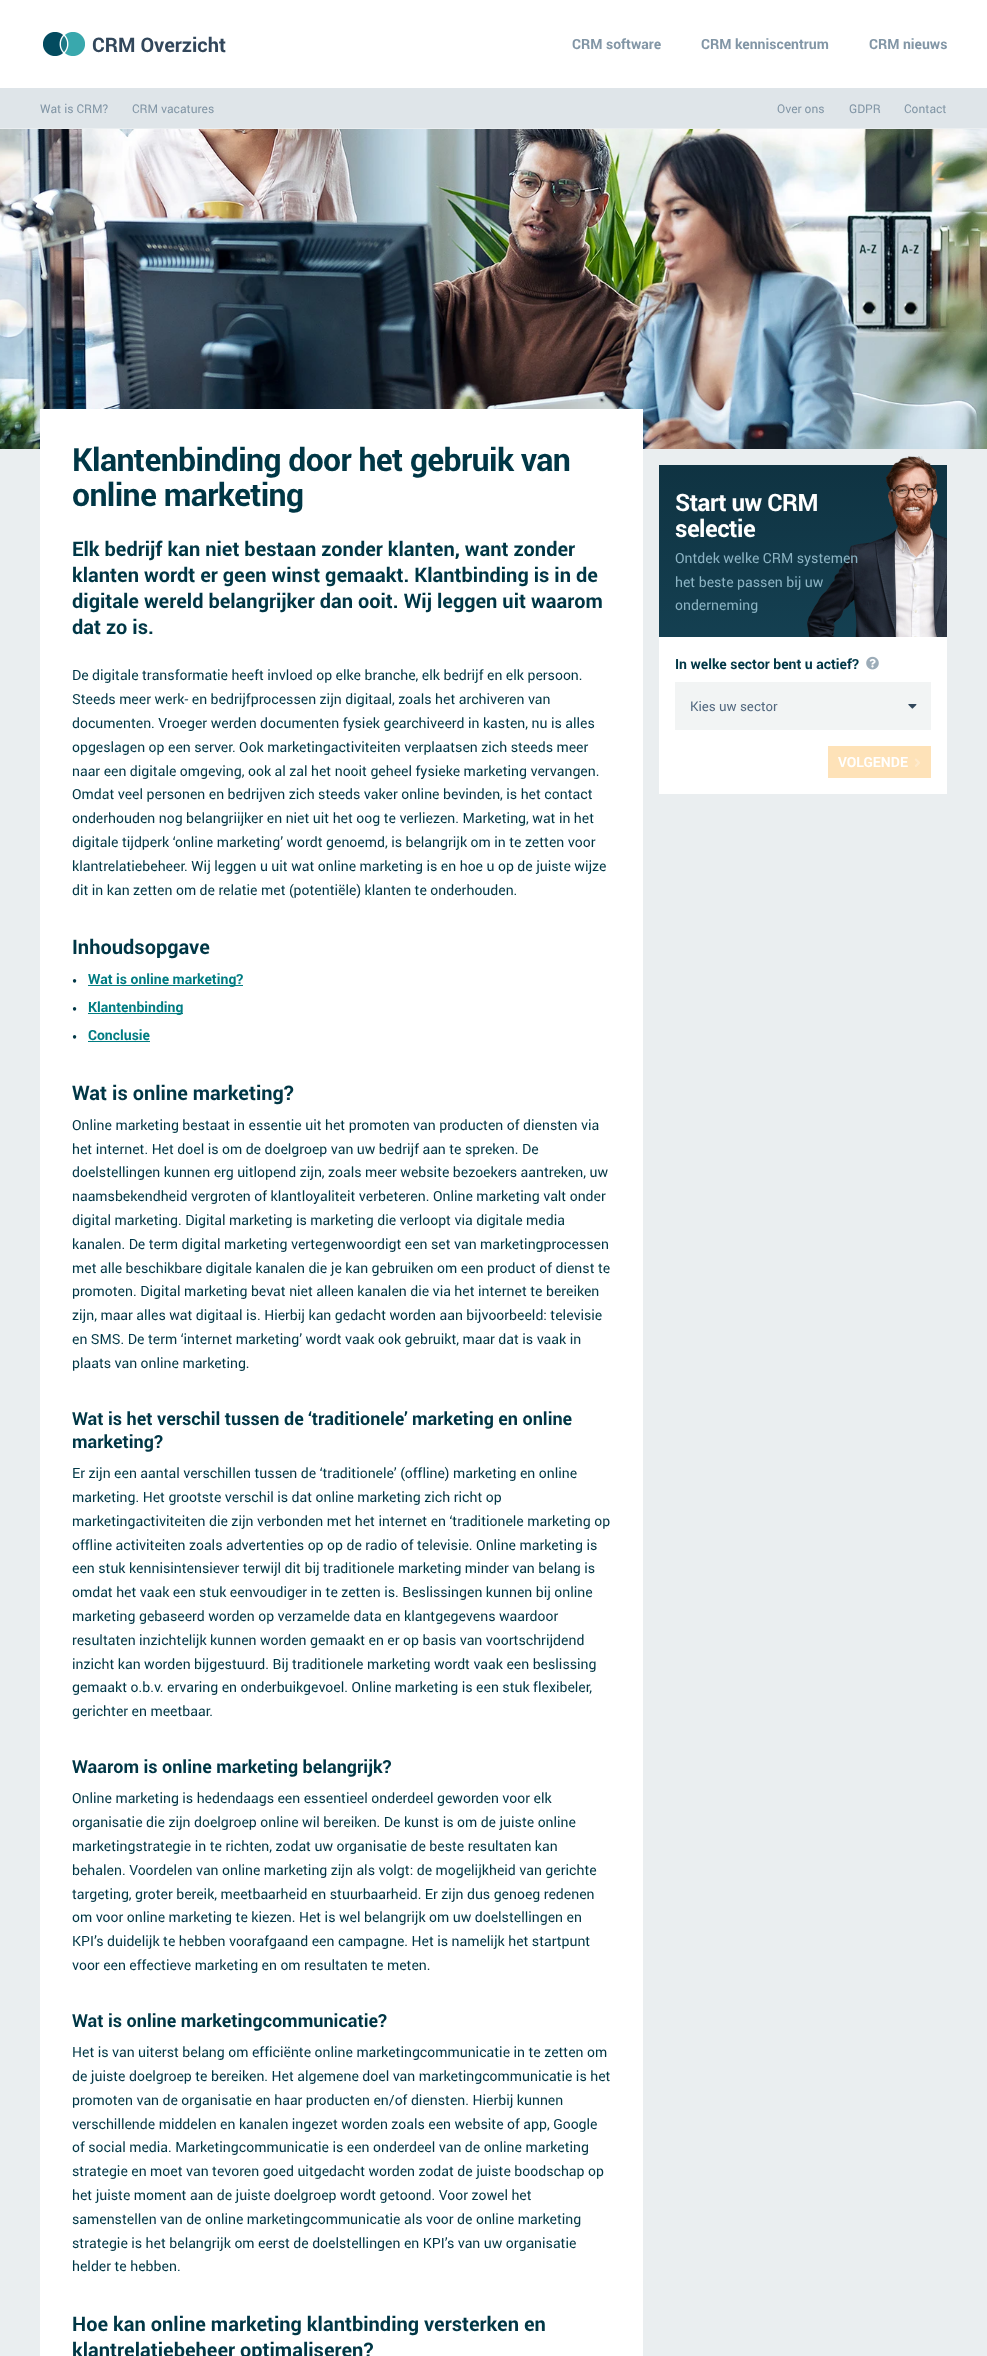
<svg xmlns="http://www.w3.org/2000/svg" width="987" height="2356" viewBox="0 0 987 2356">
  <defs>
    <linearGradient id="g1" gradientUnits="userSpaceOnUse" x1="803" y1="465" x2="803" y2="794"><stop offset="0" stop-color="#0f3342"/><stop offset="1" stop-color="#194b5f"/></linearGradient>
  </defs>
  <rect width="100%" height="100%" fill="#eaeef0"/>
  <rect x="0" y="0" width="987" height="88" fill="#ffffff"/>
  <image x="43" y="32" width="42" height="24" href="img1.png"/>
  <text x="92" y="52" font-family="Roboto" font-size="20" font-weight="bold" fill="#32475b">CRM Overzicht</text>
  <text x="572" y="49" font-family="Roboto" font-size="14" font-weight="bold" fill="#8296a6">CRM software</text>
  <text x="701" y="49" font-family="Roboto" font-size="14" font-weight="bold" fill="#8296a6">CRM kenniscentrum</text>
  <text x="869" y="49" font-family="Roboto" font-size="14" font-weight="bold" fill="#8296a6">CRM nieuws</text>
  <rect x="0" y="88" width="987" height="40" fill="#dfe5e9"/>
  <text x="40" y="113" font-family="Roboto" font-size="12" fill="#8296a6">Wat is CRM?</text>
  <text x="132" y="113" font-family="Roboto" font-size="12" fill="#8296a6">CRM vacatures</text>
  <text x="777" y="113" font-family="Roboto" font-size="12" fill="#8296a6">Over ons</text>
  <text x="849" y="113" font-family="Roboto" font-size="12" fill="#8296a6">GDPR</text>
  <text x="904" y="113" font-family="Roboto" font-size="12" fill="#8296a6">Contact</text>
  <image x="0" y="129" width="987" height="320" href="img2.png"/>
  <rect x="40" y="409" width="603" height="1947" fill="#ffffff"/>
  <text x="72" y="471" font-family="Roboto" font-size="32" font-weight="bold" letter-spacing="-0.65" fill="#003746">Klantenbinding door het gebruik van</text>
  <text x="72" y="506" font-family="Roboto" font-size="32" font-weight="bold" letter-spacing="-0.65" fill="#003746">online marketing</text>
  <text x="72" y="556" font-family="Roboto" font-size="20" font-weight="bold" fill="#003746">Elk bedrijf kan niet bestaan zonder klanten, want zonder</text>
  <text x="72" y="582" font-family="Roboto" font-size="20" font-weight="bold" fill="#003746">klanten wordt er geen winst gemaakt. Klantbinding is in de</text>
  <text x="72" y="608" font-family="Roboto" font-size="20" font-weight="bold" fill="#003746">digitale wereld belangrijker dan ooit. Wij leggen uit waarom</text>
  <text x="72" y="634" font-family="Roboto" font-size="20" font-weight="bold" fill="#003746">dat zo is.</text>
  <text x="72" y="680" font-family="Roboto" font-size="14" fill="#003746">De digitale transformatie heeft invloed op elke branche, elk bedrijf en elk persoon.</text>
  <text x="72" y="704" font-family="Roboto" font-size="14" fill="#003746">Steeds meer werk- en bedrijfprocessen zijn digitaal, zoals het archiveren van</text>
  <text x="72" y="728" font-family="Roboto" font-size="14" fill="#003746">documenten. Vroeger werden documenten fysiek gearchiveerd in kasten, nu is alles</text>
  <text x="72" y="752" font-family="Roboto" font-size="14" fill="#003746">opgeslagen op een server. Ook marketingactiviteiten verplaatsen zich steeds meer</text>
  <text x="72" y="776" font-family="Roboto" font-size="14" fill="#003746">naar een digitale omgeving, ook al zal het nooit geheel fysieke marketing vervangen.</text>
  <text x="72" y="799" font-family="Roboto" font-size="14" fill="#003746">Omdat veel personen en bedrijven zich steeds vaker online bevinden, is het contact</text>
  <text x="72" y="823" font-family="Roboto" font-size="14" fill="#003746">onderhouden nog belangriijker en niet uit het oog te verliezen. Marketing, wat in het</text>
  <text x="72" y="847" font-family="Roboto" font-size="14" fill="#003746">digitale tijdperk ‘online marketing’ wordt genoemd, is belangrijk om in te zetten voor</text>
  <text x="72" y="871" font-family="Roboto" font-size="14" fill="#003746">klantrelatiebeheer. Wij leggen u uit wat online marketing is en hoe u op de juiste wijze</text>
  <text x="72" y="895" font-family="Roboto" font-size="14" fill="#003746">dit in kan zetten om de relatie met (potentiële) klanten te onderhouden.</text>
  <text x="72" y="954" font-family="Roboto" font-size="20" font-weight="bold" fill="#003746">Inhoudsopgave</text>
  <text x="72" y="986" font-family="Roboto" font-size="14" font-weight="bold" fill="#003746">•</text>
  <rect x="88" y="985" width="155" height="1" fill="#007c82"/>
  <text x="88" y="984" font-family="Roboto" font-size="14" font-weight="bold" fill="#007c82">Wat is online marketing?</text>
  <text x="72" y="1014" font-family="Roboto" font-size="14" font-weight="bold" fill="#003746">•</text>
  <rect x="88" y="1013" width="95" height="1" fill="#007c82"/>
  <text x="88" y="1012" font-family="Roboto" font-size="14" font-weight="bold" fill="#007c82">Klantenbinding</text>
  <text x="72" y="1042" font-family="Roboto" font-size="14" font-weight="bold" fill="#003746">•</text>
  <text x="88" y="1040" font-family="Roboto" font-size="14" font-weight="bold" fill="#007c82">Conclusie</text>
  <rect x="88" y="1041" width="62" height="1" fill="#007c82"/>
  <text x="72" y="1100" font-family="Roboto" font-size="20" font-weight="bold" fill="#003746">Wat is online marketing?</text>
  <text x="72" y="1130" font-family="Roboto" font-size="14" fill="#003746">Online marketing bestaat in essentie uit het promoten van producten of diensten via</text>
  <text x="72" y="1154" font-family="Roboto" font-size="14" fill="#003746">het internet. Het doel is om de doelgroep van uw bedrijf aan te spreken. De</text>
  <text x="72" y="1177" font-family="Roboto" font-size="14" fill="#003746">doelstellingen kunnen erg uitlopend zijn, zoals meer website bezoekers aantreken, uw</text>
  <text x="72" y="1201" font-family="Roboto" font-size="14" fill="#003746">naamsbekendheid vergroten of klantloyaliteit verbeteren. Online marketing valt onder</text>
  <text x="72" y="1225" font-family="Roboto" font-size="14" fill="#003746">digital marketing. Digital marketing is marketing die verloopt via digitale media</text>
  <text x="72" y="1249" font-family="Roboto" font-size="14" fill="#003746">kanalen. De term digital marketing vertegenwoordigt een set van marketingprocessen</text>
  <text x="72" y="1273" font-family="Roboto" font-size="14" fill="#003746">met alle beschikbare digitale kanalen die je kan gebruiken om een product of dienst te</text>
  <text x="72" y="1296" font-family="Roboto" font-size="14" fill="#003746">promoten. Digital marketing bevat niet alleen kanalen die via het internet te bereiken</text>
  <text x="72" y="1320" font-family="Roboto" font-size="14" fill="#003746">zijn, maar alles wat digitaal is. Hierbij kan gedacht worden aan bijvoorbeeld: televisie</text>
  <text x="72" y="1344" font-family="Roboto" font-size="14" fill="#003746">en SMS. De term ‘internet marketing’ wordt vaak ook gebruikt, maar dat is vaak in</text>
  <text x="72" y="1368" font-family="Roboto" font-size="14" fill="#003746">plaats van online marketing.</text>
  <text x="72" y="1425" font-family="Roboto" font-size="18" font-weight="bold" fill="#003746">Wat is het verschil tussen de ‘traditionele’ marketing en online</text>
  <text x="72" y="1448" font-family="Roboto" font-size="18" font-weight="bold" fill="#003746">marketing?</text>
  <text x="72" y="1478" font-family="Roboto" font-size="14" fill="#003746">Er zijn een aantal verschillen tussen de ‘traditionele’ (offline) marketing en online</text>
  <text x="72" y="1502" font-family="Roboto" font-size="14" fill="#003746">marketing. Het grootste verschil is dat online marketing zich richt op</text>
  <text x="72" y="1526" font-family="Roboto" font-size="14" fill="#003746">marketingactiviteiten die zijn verbonden met het internet en ‘traditionele marketing op</text>
  <text x="72" y="1550" font-family="Roboto" font-size="14" fill="#003746">offline activiteiten zoals advertenties op op de radio of televisie. Online marketing is</text>
  <text x="72" y="1573" font-family="Roboto" font-size="14" fill="#003746">een stuk kennisintensiever terwijl dit bij traditionele marketing minder van belang is</text>
  <text x="72" y="1597" font-family="Roboto" font-size="14" fill="#003746">omdat het vaak een stuk eenvoudiger in te zetten is. Beslissingen kunnen bij online</text>
  <text x="72" y="1621" font-family="Roboto" font-size="14" fill="#003746">marketing gebaseerd worden op verzamelde data en klantgegevens waardoor</text>
  <text x="72" y="1645" font-family="Roboto" font-size="14" fill="#003746">resultaten inzichtelijk kunnen worden gemaakt en er op basis van voortschrijdend</text>
  <text x="72" y="1669" font-family="Roboto" font-size="14" fill="#003746">inzicht kan worden bijgestuurd. Bij traditionele marketing wordt vaak een beslissing</text>
  <text x="72" y="1692" font-family="Roboto" font-size="14" fill="#003746">gemaakt o.b.v. ervaring en onderbuikgevoel. Online marketing is een stuk flexibeler,</text>
  <text x="72" y="1716" font-family="Roboto" font-size="14" fill="#003746">gerichter en meetbaar.</text>
  <text x="72" y="1773" font-family="Roboto" font-size="18" font-weight="bold" fill="#003746">Waarom is online marketing belangrijk?</text>
  <text x="72" y="1803" font-family="Roboto" font-size="14" fill="#003746">Online marketing is hedendaags een essentieel onderdeel geworden voor elk</text>
  <text x="72" y="1827" font-family="Roboto" font-size="14" fill="#003746">organisatie die zijn doelgroep online wil bereiken. De kunst is om de juiste online</text>
  <text x="72" y="1851" font-family="Roboto" font-size="14" fill="#003746">marketingstrategie in te richten, zodat uw organisatie de beste resultaten kan</text>
  <text x="72" y="1875" font-family="Roboto" font-size="14" fill="#003746">behalen. Voordelen van online marketing zijn als volgt: de mogelijkheid van gerichte</text>
  <text x="72" y="1899" font-family="Roboto" font-size="14" fill="#003746">targeting, groter bereik, meetbaarheid en stuurbaarheid. Er zijn dus genoeg redenen</text>
  <text x="72" y="1922" font-family="Roboto" font-size="14" fill="#003746">om voor online marketing te kiezen. Het is wel belangrijk om uw doelstellingen en</text>
  <text x="72" y="1946" font-family="Roboto" font-size="14" fill="#003746">KPI’s duidelijk te hebben voorafgaand een campagne. Het is namelijk het startpunt</text>
  <text x="72" y="1970" font-family="Roboto" font-size="14" fill="#003746">voor een effectieve marketing en om resultaten te meten.</text>
  <text x="72" y="2027" font-family="Roboto" font-size="18" font-weight="bold" fill="#003746">Wat is online marketingcommunicatie?</text>
  <text x="72" y="2057" font-family="Roboto" font-size="14" fill="#003746">Het is van uiterst belang om efficiënte online marketingcommunicatie in te zetten om</text>
  <text x="72" y="2081" font-family="Roboto" font-size="14" fill="#003746">de juiste doelgroep te bereiken. Het algemene doel van marketingcommunicatie is het</text>
  <text x="72" y="2105" font-family="Roboto" font-size="14" fill="#003746">promoten van de organisatie en haar producten en/of diensten. Hierbij kunnen</text>
  <text x="72" y="2129" font-family="Roboto" font-size="14" fill="#003746">verschillende middelen en kanalen ingezet worden zoals een website of app, Google</text>
  <text x="72" y="2152" font-family="Roboto" font-size="14" fill="#003746">of social media. Marketingcommunicatie is een onderdeel van de online marketing</text>
  <text x="72" y="2176" font-family="Roboto" font-size="14" fill="#003746">strategie en moet van tevoren goed uitgedacht worden zodat de juiste boodschap op</text>
  <text x="72" y="2200" font-family="Roboto" font-size="14" fill="#003746">het juiste moment aan de juiste doelgroep wordt getoond. Voor zowel het</text>
  <text x="72" y="2224" font-family="Roboto" font-size="14" fill="#003746">samenstellen van de online marketingcommunicatie als voor de online marketing</text>
  <text x="72" y="2248" font-family="Roboto" font-size="14" fill="#003746">strategie is het belangrijk om eerst de doelstellingen en KPI’s van uw organisatie</text>
  <text x="72" y="2271" font-family="Roboto" font-size="14" fill="#003746">helder te hebben.</text>
  <text x="72" y="2331" font-family="Roboto" font-size="20" font-weight="bold" fill="#003746">Hoe kan online marketing klantbinding versterken en</text>
  <text x="72" y="2357" font-family="Roboto" font-size="20" font-weight="bold" fill="#003746">klantrelatiebeheer optimaliseren?</text>
  <rect x="659" y="465" width="288" height="172" fill="url(#g1)"/>
  <image x="807" y="456" width="140" height="181" href="img3.png"/>
  <text x="675" y="511" font-family="Roboto" font-size="24" font-weight="bold" letter-spacing="-0.5" fill="#ffffff">Start uw CRM</text>
  <text x="675" y="537" font-family="Roboto" font-size="24" font-weight="bold" letter-spacing="-0.5" fill="#ffffff">selectie</text>
  <text x="675" y="563" font-family="Roboto" font-size="14" fill="#8bb3c3">Ontdek welke CRM systemen</text>
  <text x="675" y="587" font-family="Roboto" font-size="14" fill="#8bb3c3">het beste passen bij uw</text>
  <text x="675" y="610" font-family="Roboto" font-size="14" fill="#8bb3c3">onderneming</text>
  <rect x="659" y="637" width="288" height="157" fill="#ffffff"/>
  <text x="675" y="669" font-family="Roboto" font-size="14" font-weight="bold" fill="#003746">In welke sector bent u actief?</text>
  <image x="866" y="656" width="13" height="14" href="img4.png"/>
  <rect x="675" y="682" width="256" height="48" fill="#f2f4f4"/>
  <text x="690" y="711" font-family="Roboto" font-size="13.25" fill="#52687f">Kies uw sector</text>
  <image x="908" y="704" width="9" height="5" href="img5.png"/>
  <rect x="828" y="746" width="103" height="32" fill="#fee2b8"/>
  <text x="838" y="767" font-family="Roboto" font-size="14" font-weight="bold" fill="#ffffff">VOLGENDE</text>
  <image x="914" y="758" width="6" height="9" href="img6.png"/>
</svg>
